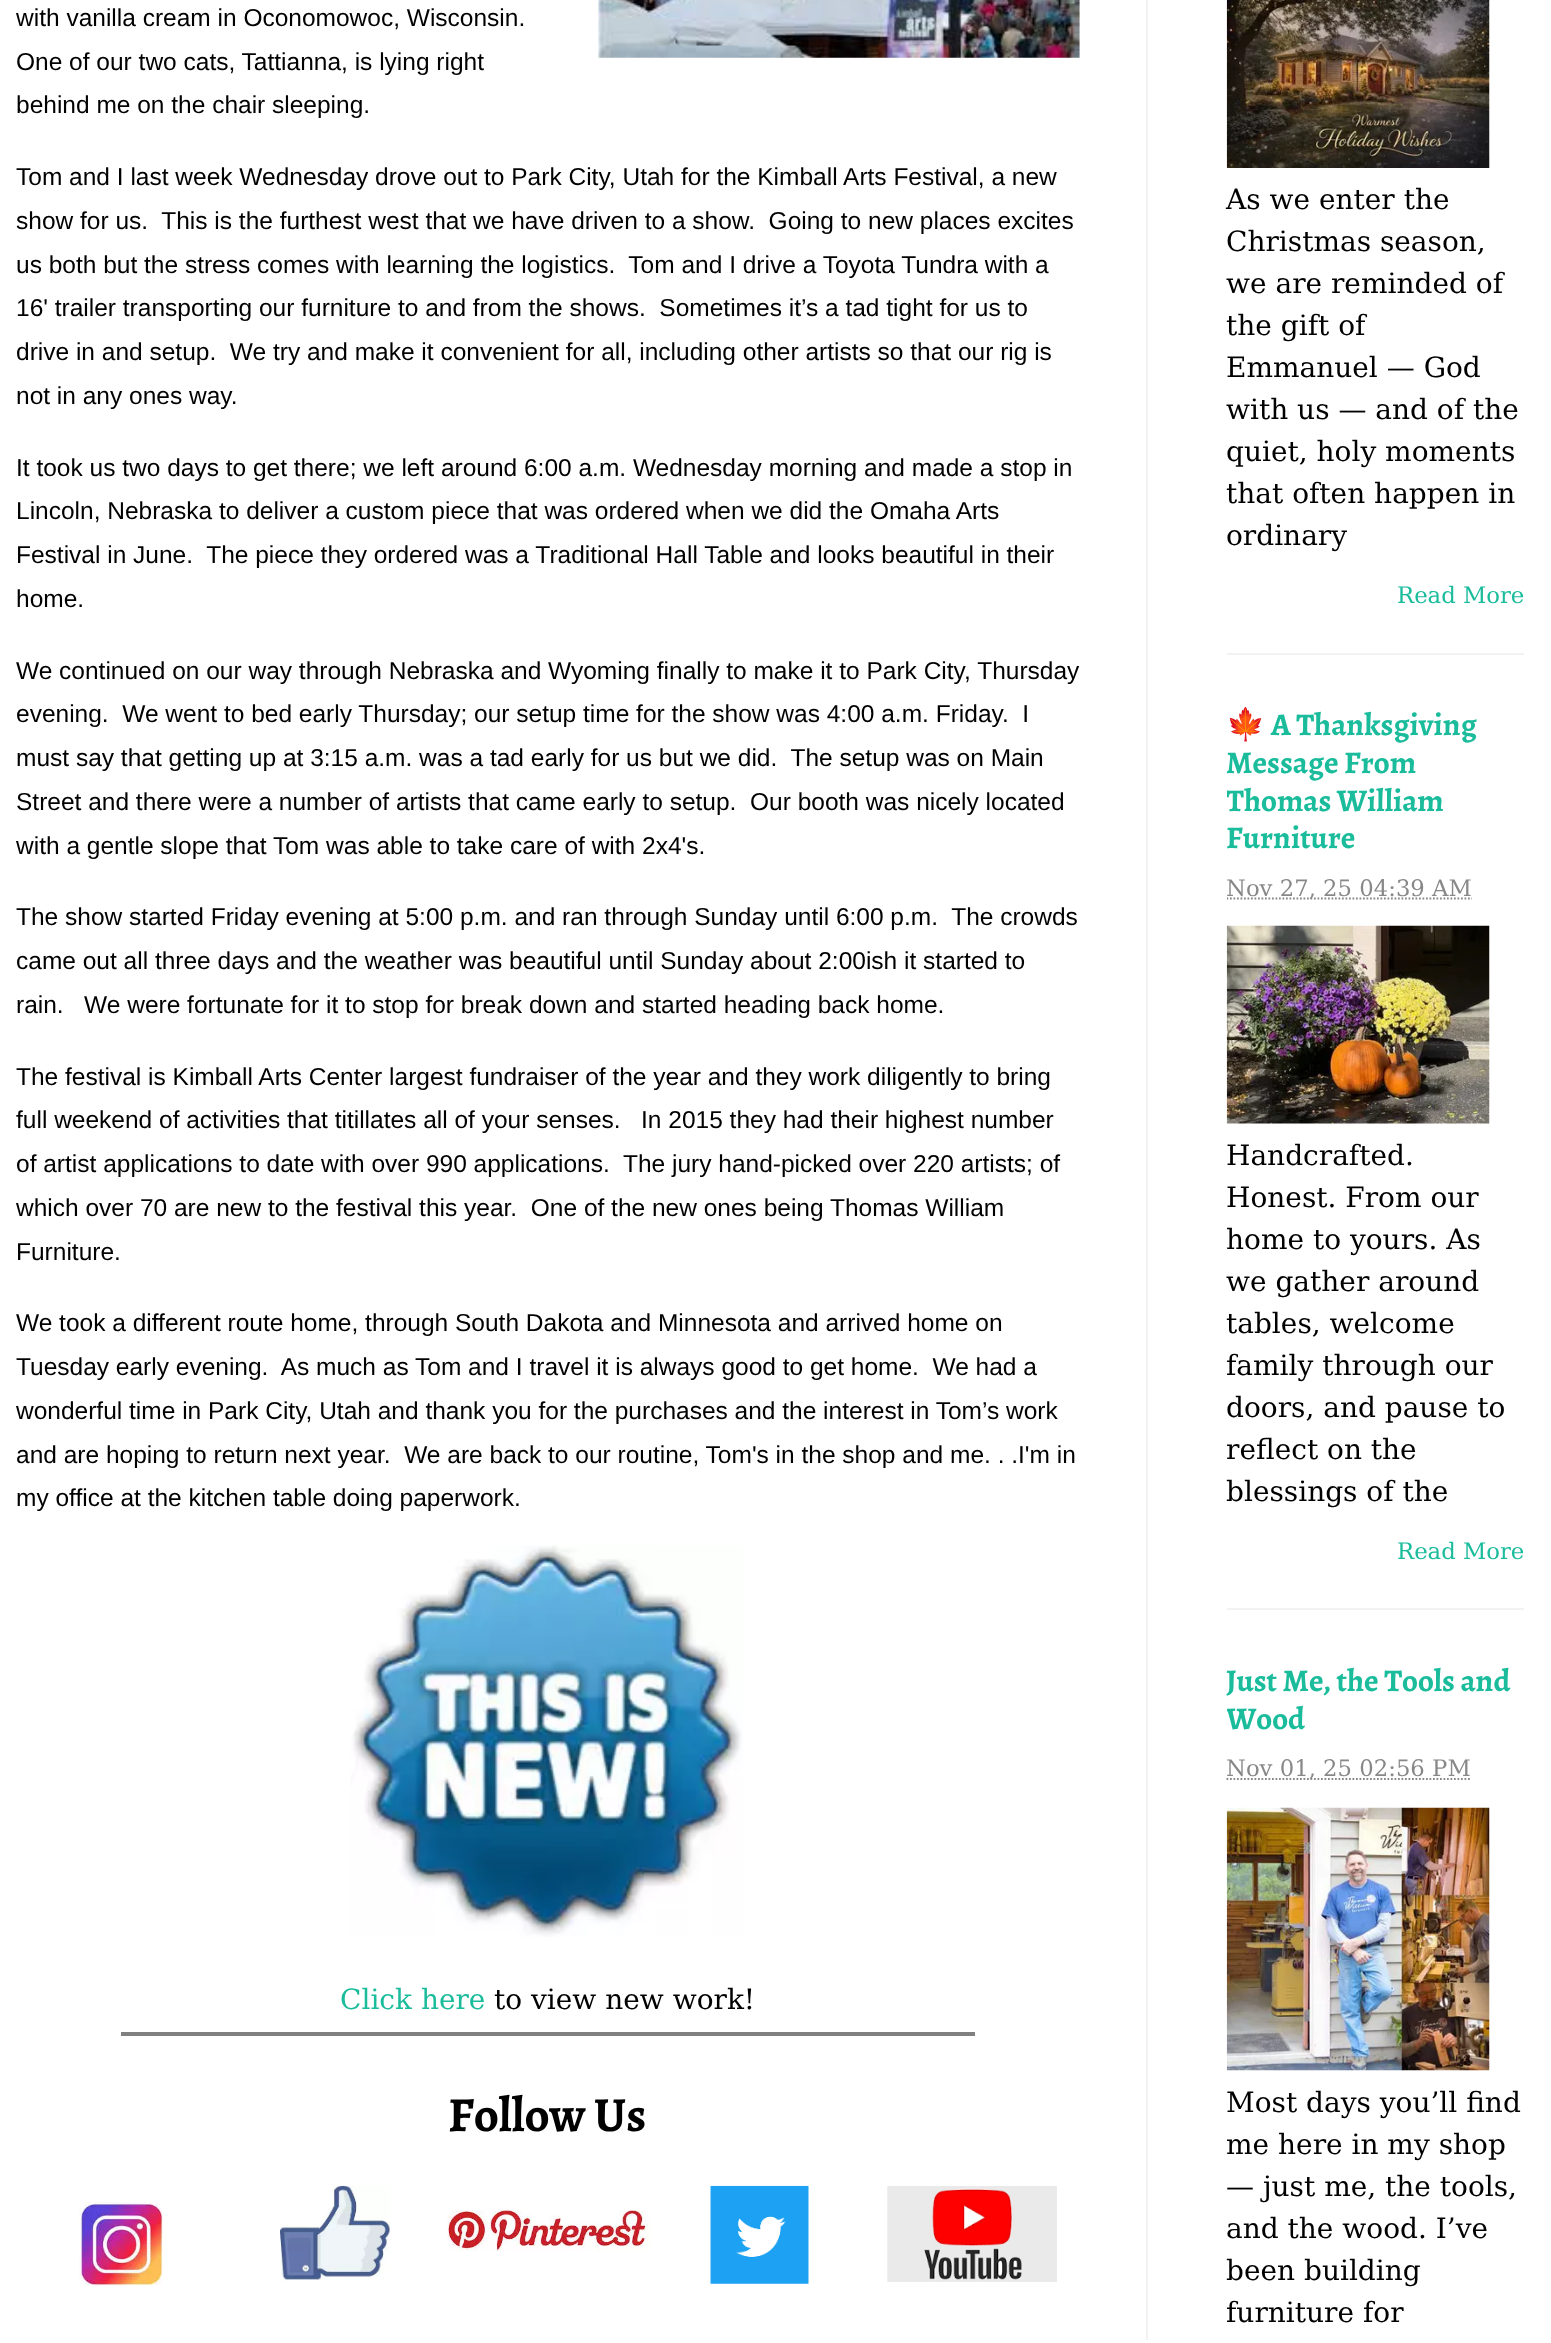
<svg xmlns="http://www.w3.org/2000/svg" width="1551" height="2343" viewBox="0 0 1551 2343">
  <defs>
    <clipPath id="clip1"><rect x="1227" y="0" width="297" height="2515"/></clipPath>
  </defs>
  <rect width="100%" height="100%" fill="#ffffff"/>
  <rect x="1146" y="0" width="2" height="2340" fill="#f2f2f2"/>
  <text x="16" y="26" font-family="Liberation Sans" font-size="24.5" fill="#000000">with vanilla cream in Oconomowoc, Wisconsin.</text>
  <text x="16" y="70" font-family="Liberation Sans" font-size="24.5" fill="#000000">One of our two cats, Tattianna, is lying right</text>
  <text x="16" y="113" font-family="Liberation Sans" font-size="24.5" fill="#000000">behind me on the chair sleeping.</text>
  <image x="598" y="0" width="482" height="58" href="img1.png"/>
  <text x="16" y="185" font-family="Liberation Sans" font-size="24.5" fill="#000000">Tom and I last week Wednesday drove out to Park City, Utah for the Kimball Arts Festival, a new</text>
  <text x="16" y="229" font-family="Liberation Sans" font-size="24.5" fill="#000000" xml:space="preserve">show for us.  This is the furthest west that we have driven to a show.  Going to new places excites</text>
  <text x="16" y="273" font-family="Liberation Sans" font-size="24.5" fill="#000000" xml:space="preserve">us both but the stress comes with learning the logistics.  Tom and I drive a Toyota Tundra with a</text>
  <text x="16" y="316" font-family="Liberation Sans" font-size="24.5" fill="#000000" xml:space="preserve">16' trailer transporting our furniture to and from the shows.  Sometimes it’s a tad tight for us to</text>
  <text x="16" y="360" font-family="Liberation Sans" font-size="24.5" fill="#000000" xml:space="preserve">drive in and setup.  We try and make it convenient for all, including other artists so that our rig is</text>
  <text x="16" y="404" font-family="Liberation Sans" font-size="24.5" fill="#000000">not in any ones way.</text>
  <text x="16" y="476" font-family="Liberation Sans" font-size="24.5" fill="#000000">It took us two days to get there; we left around 6:00 a.m. Wednesday morning and made a stop in</text>
  <text x="16" y="519" font-family="Liberation Sans" font-size="24.5" fill="#000000">Lincoln, Nebraska to deliver a custom piece that was ordered when we did the Omaha Arts</text>
  <text x="16" y="563" font-family="Liberation Sans" font-size="24.5" fill="#000000" xml:space="preserve">Festival in June.  The piece they ordered was a Traditional Hall Table and looks beautiful in their</text>
  <text x="16" y="607" font-family="Liberation Sans" font-size="24.5" fill="#000000">home.</text>
  <text x="16" y="679" font-family="Liberation Sans" font-size="24.5" fill="#000000">We continued on our way through Nebraska and Wyoming finally to make it to Park City, Thursday</text>
  <text x="16" y="722" font-family="Liberation Sans" font-size="24.5" fill="#000000" xml:space="preserve">evening.  We went to bed early Thursday; our setup time for the show was 4:00 a.m. Friday.  I</text>
  <text x="16" y="766" font-family="Liberation Sans" font-size="24.5" fill="#000000" xml:space="preserve">must say that getting up at 3:15 a.m. was a tad early for us but we did.  The setup was on Main</text>
  <text x="16" y="810" font-family="Liberation Sans" font-size="24.5" fill="#000000" xml:space="preserve">Street and there were a number of artists that came early to setup.  Our booth was nicely located</text>
  <text x="16" y="854" font-family="Liberation Sans" font-size="24.5" fill="#000000">with a gentle slope that Tom was able to take care of with 2x4's.</text>
  <text x="16" y="925" font-family="Liberation Sans" font-size="24.5" fill="#000000" xml:space="preserve">The show started Friday evening at 5:00 p.m. and ran through Sunday until 6:00 p.m.  The crowds</text>
  <text x="16" y="969" font-family="Liberation Sans" font-size="24.5" fill="#000000">came out all three days and the weather was beautiful until Sunday about 2:00ish it started to</text>
  <text x="16" y="1013" font-family="Liberation Sans" font-size="24.5" fill="#000000" xml:space="preserve">rain.   We were fortunate for it to stop for break down and started heading back home.</text>
  <text x="16" y="1085" font-family="Liberation Sans" font-size="24.5" fill="#000000">The festival is Kimball Arts Center largest fundraiser of the year and they work diligently to bring</text>
  <text x="16" y="1128" font-family="Liberation Sans" font-size="24.5" fill="#000000" xml:space="preserve">full weekend of activities that titillates all of your senses.   In 2015 they had their highest number</text>
  <text x="16" y="1172" font-family="Liberation Sans" font-size="24.5" fill="#000000" xml:space="preserve">of artist applications to date with over 990 applications.  The jury hand-picked over 220 artists; of</text>
  <text x="16" y="1216" font-family="Liberation Sans" font-size="24.5" fill="#000000" xml:space="preserve">which over 70 are new to the festival this year.  One of the new ones being Thomas William</text>
  <text x="16" y="1260" font-family="Liberation Sans" font-size="24.5" fill="#000000">Furniture.</text>
  <text x="16" y="1331" font-family="Liberation Sans" font-size="24.5" fill="#000000">We took a different route home, through South Dakota and Minnesota and arrived home on</text>
  <text x="16" y="1375" font-family="Liberation Sans" font-size="24.5" fill="#000000" xml:space="preserve">Tuesday early evening.  As much as Tom and I travel it is always good to get home.  We had a</text>
  <text x="16" y="1419" font-family="Liberation Sans" font-size="24.5" fill="#000000">wonderful time in Park City, Utah and thank you for the purchases and the interest in Tom’s work</text>
  <text x="16" y="1463" font-family="Liberation Sans" font-size="24.5" fill="#000000" xml:space="preserve">and are hoping to return next year.  We are back to our routine, Tom's in the shop and me. . .I'm in</text>
  <text x="16" y="1506" font-family="Liberation Sans" font-size="24.5" fill="#000000">my office at the kitchen table doing paperwork.</text>
  <image x="350" y="1545" width="393" height="392" href="img2.png"/>
  <text x="340" y="2009" font-family="DejaVu Serif" font-size="28" fill="#1abc9c">Click here</text>
  <text x="494" y="2009" font-family="DejaVu Serif" font-size="28" fill="#000000">to view new work!</text>
  <rect x="121" y="2032" width="854" height="4" fill="#808080"/>
  <text x="448" y="2131" font-family="Alegreya" font-size="49" font-weight="bold" fill="#000000">Follow Us</text>
  <image x="79" y="2202" width="84" height="84" href="img3.png"/>
  <image x="280" y="2185" width="111" height="96" href="img4.png"/>
  <image x="447" y="2209" width="203" height="42" href="img5.png"/>
  <image x="710" y="2185" width="99" height="99" href="img6.png"/>
  <image x="887" y="2186" width="170" height="96" href="img7.png"/>
  <image x="1226" y="0" width="264" height="168" href="img8.png"/>
  <text x="1226" y="209" font-family="DejaVu Serif" font-size="28" fill="#000000">As we enter the</text>
  <text x="1226" y="251" font-family="DejaVu Serif" font-size="28" fill="#000000">Christmas season,</text>
  <text x="1226" y="293" font-family="DejaVu Serif" font-size="28" fill="#000000">we are reminded of</text>
  <text x="1226" y="335" font-family="DejaVu Serif" font-size="28" fill="#000000">the gift of</text>
  <text x="1226" y="377" font-family="DejaVu Serif" font-size="28" fill="#000000">Emmanuel — God</text>
  <text x="1226" y="419" font-family="DejaVu Serif" font-size="28" fill="#000000">with us — and of the</text>
  <text x="1226" y="461" font-family="DejaVu Serif" font-size="28" fill="#000000">quiet, holy moments</text>
  <text x="1226" y="503" font-family="DejaVu Serif" font-size="28" fill="#000000">that often happen in</text>
  <text x="1226" y="545" font-family="DejaVu Serif" font-size="28" fill="#000000">ordinary</text>
  <text x="1397" y="603" font-family="DejaVu Serif" font-size="22.75" fill="#1abc9c">Read More</text>
  <rect x="1227" y="653" width="297" height="2" fill="#f2f2f2"/>
  <g clip-path="url(#clip1)">
    <text x="1226" y="735" font-family="Noto Color Emoji" font-size="31.5" font-weight="bold" fill="#1abc9c">🍁</text>
  </g>
  <text x="1271" y="735" font-family="Alegreya" font-size="31.5" font-weight="bold" fill="#1abc9c">A Thanksgiving</text>
  <text x="1226" y="773" font-family="Alegreya" font-size="31.5" font-weight="bold" fill="#1abc9c">Message From</text>
  <g clip-path="url(#clip1)">
    <text x="1226" y="811" font-family="Alegreya" font-size="31.5" font-weight="bold" fill="#1abc9c">Thomas William</text>
  </g>
  <text x="1226" y="848" font-family="Alegreya" font-size="31.5" font-weight="bold" fill="#1abc9c">Furniture</text>
  <g clip-path="url(#clip1)">
    <path d="M1226.5 898.5H1472" fill="none" stroke="#888888" stroke-width="1.8" stroke-dasharray="1.75 1.75"/>
  </g>
  <text x="1226" y="896" font-family="DejaVu Serif" font-size="22.75" fill="#888888">Nov 27, 25 04:39 AM</text>
  <image x="1226" y="925" width="264" height="199" href="img9.png"/>
  <text x="1226" y="1165" font-family="DejaVu Serif" font-size="28" fill="#000000">Handcrafted.</text>
  <text x="1226" y="1207" font-family="DejaVu Serif" font-size="28" fill="#000000">Honest. From our</text>
  <text x="1226" y="1249" font-family="DejaVu Serif" font-size="28" fill="#000000">home to yours. As</text>
  <text x="1226" y="1291" font-family="DejaVu Serif" font-size="28" fill="#000000">we gather around</text>
  <text x="1226" y="1333" font-family="DejaVu Serif" font-size="28" fill="#000000">tables, welcome</text>
  <text x="1226" y="1375" font-family="DejaVu Serif" font-size="28" fill="#000000">family through our</text>
  <text x="1226" y="1417" font-family="DejaVu Serif" font-size="28" fill="#000000">doors, and pause to</text>
  <text x="1226" y="1459" font-family="DejaVu Serif" font-size="28" fill="#000000">reflect on the</text>
  <text x="1226" y="1501" font-family="DejaVu Serif" font-size="28" fill="#000000">blessings of the</text>
  <text x="1397" y="1559" font-family="DejaVu Serif" font-size="22.75" fill="#1abc9c">Read More</text>
  <rect x="1227" y="1608" width="297" height="2" fill="#f2f2f2"/>
  <text x="1226" y="1691" font-family="Alegreya" font-size="31.5" font-weight="bold" fill="#1abc9c">Just Me, the Tools and</text>
  <g clip-path="url(#clip1)">
    <text x="1226" y="1729" font-family="Alegreya" font-size="31.5" font-weight="bold" fill="#1abc9c">Wood</text>
  </g>
  <path d="M1226.5 1779H1471" fill="none" stroke="#888888" stroke-width="1.8" stroke-dasharray="1.75 1.75"/>
  <text x="1226" y="1776" font-family="DejaVu Serif" font-size="22.75" fill="#888888">Nov 01, 25 02:56 PM</text>
  <image x="1226" y="1807" width="264" height="264" href="img10.png"/>
  <text x="1226" y="2112" font-family="DejaVu Serif" font-size="28" fill="#000000">Most days you’ll find</text>
  <text x="1226" y="2154" font-family="DejaVu Serif" font-size="28" fill="#000000">me here in my shop</text>
  <text x="1226" y="2196" font-family="DejaVu Serif" font-size="28" fill="#000000">— just me, the tools,</text>
  <text x="1226" y="2238" font-family="DejaVu Serif" font-size="28" fill="#000000">and the wood. I’ve</text>
  <text x="1226" y="2280" font-family="DejaVu Serif" font-size="28" fill="#000000">been building</text>
  <text x="1226" y="2322" font-family="DejaVu Serif" font-size="28" fill="#000000">furniture for</text>
</svg>
